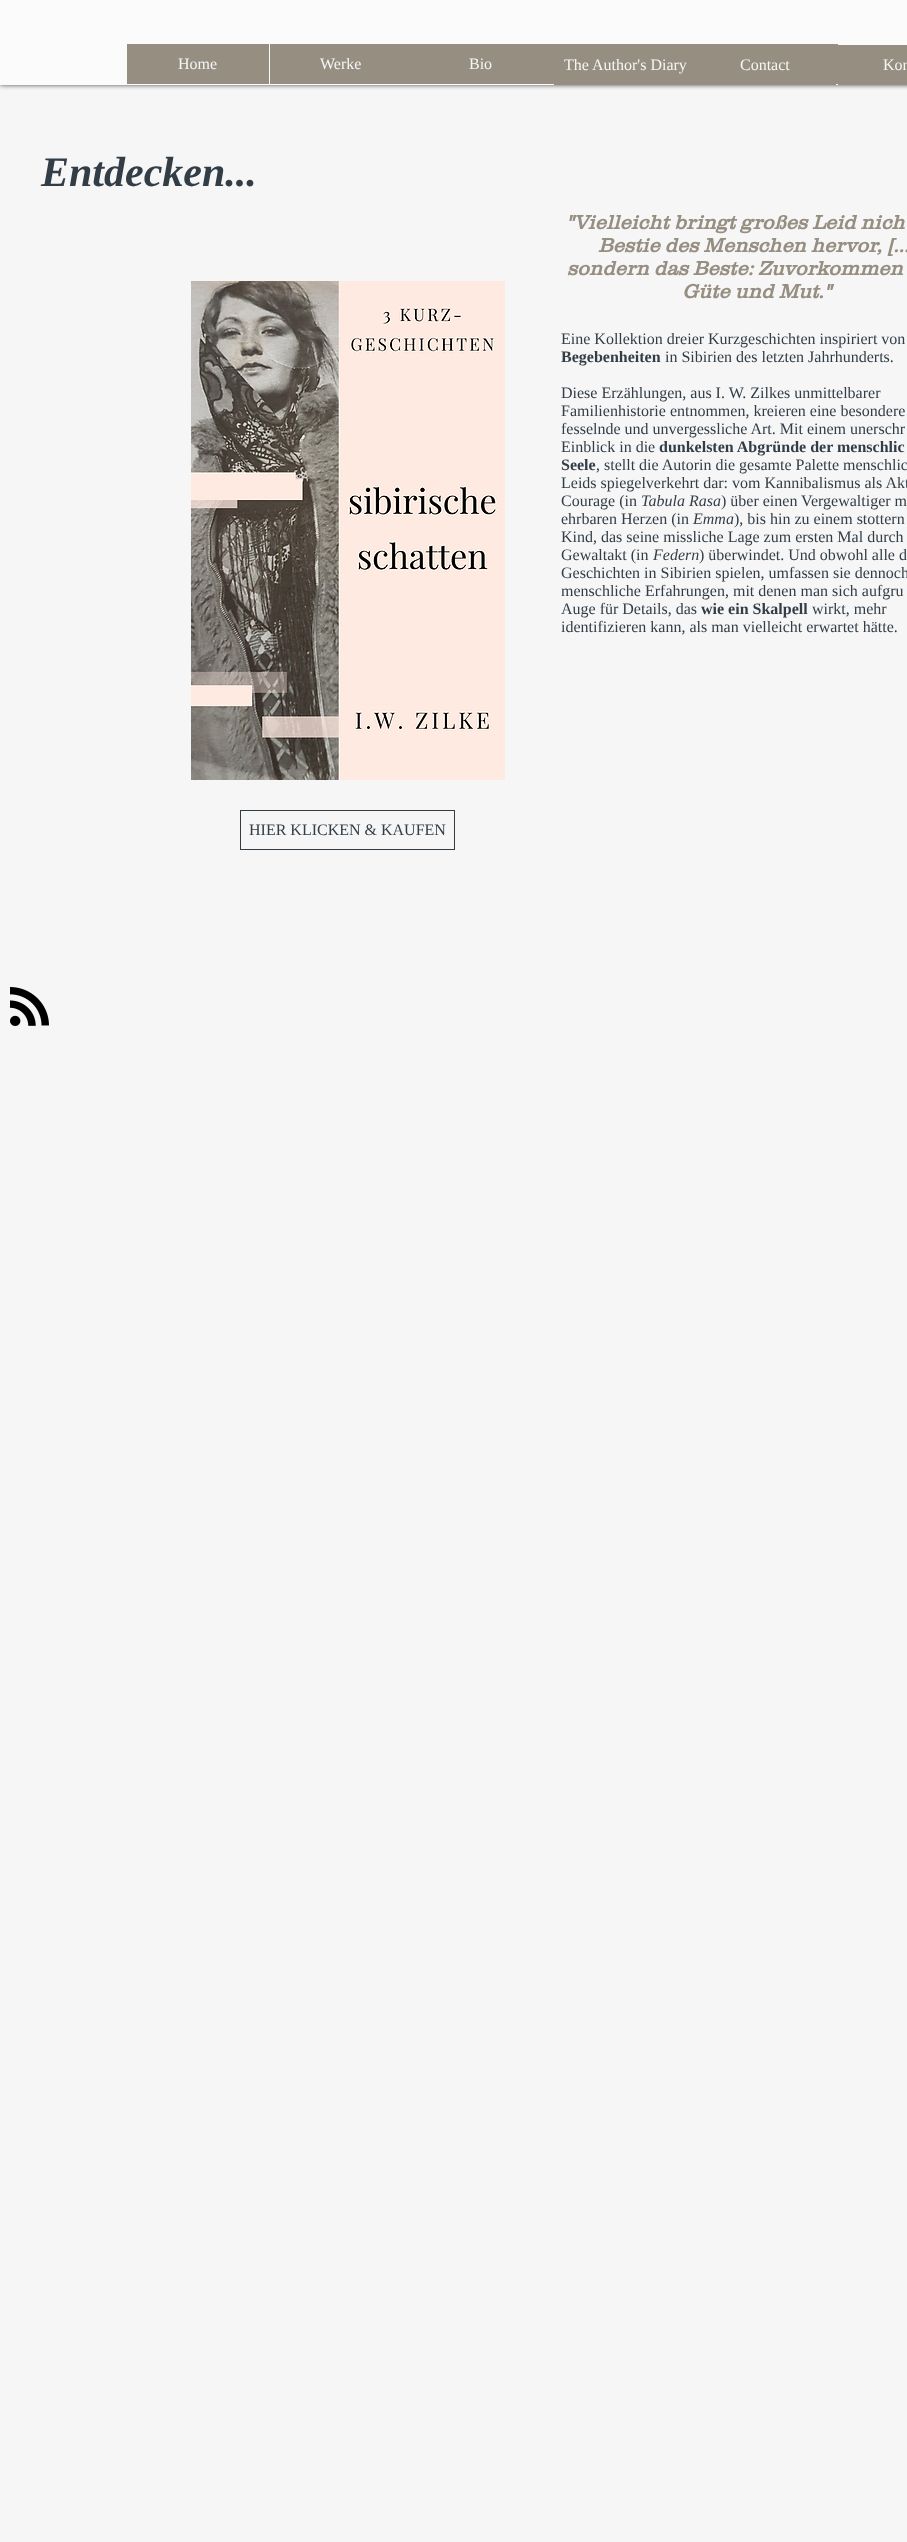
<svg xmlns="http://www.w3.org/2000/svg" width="907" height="2542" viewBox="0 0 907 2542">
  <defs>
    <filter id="blur1" x="-50%" y="-200%" width="200%" height="500%"><feGaussianBlur stdDeviation="2.5"/></filter>
  </defs>
  <rect width="100%" height="100%" fill="#f6f6f7"/>
  <rect x="0" y="0" width="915" height="85" fill="#000000" fill-opacity="0.7" filter="url(#blur1)"/>
  <rect x="0" y="0" width="907" height="85" fill="#fbfbfc"/>
  <rect x="127" y="44" width="142" height="40" fill="#968e81"/>
  <text x="178" y="69" font-family="Liberation Serif" font-size="16" fill="#f6f6f7">Home</text>
  <rect x="270" y="44" width="424" height="40" fill="#968e81"/>
  <text x="320" y="69" font-family="Liberation Serif" font-size="16" fill="#f6f6f7">Werke</text>
  <text x="469" y="69" font-family="Liberation Serif" font-size="16" fill="#f6f6f7">Bio</text>
  <rect x="554" y="84" width="140" height="1" fill="#968e81"/>
  <text x="564" y="70" font-family="Liberation Serif" font-size="16" fill="#f6f6f7">The Author's Diary</text>
  <rect x="694" y="44" width="142" height="41" fill="#968e81"/>
  <rect x="836" y="44" width="2" height="40" fill="#968e81"/>
  <text x="740" y="70" font-family="Liberation Serif" font-size="16" fill="#f6f6f7">Contact</text>
  <rect x="838" y="45" width="69" height="40" fill="#968e81"/>
  <text x="883" y="70" font-family="Liberation Serif" font-size="16" fill="#f6f6f7">Kon</text>
  <text x="41" y="186" font-family="Liberation Serif" font-size="42" font-weight="bold" font-style="italic" fill="#323d46">Entdecken...</text>
  <text x="566" y="229" font-family="'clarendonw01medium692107'" font-size="20" font-weight="bold" font-style="italic" fill="#968e81">"Vielleicht bringt großes Leid nich</text>
  <text x="598" y="252" font-family="'clarendonw01medium692107'" font-size="20" font-weight="bold" font-style="italic" fill="#968e81">Bestie des Menschen hervor, [...</text>
  <text x="567" y="275" font-family="'clarendonw01medium692107'" font-size="20" font-weight="bold" font-style="italic" fill="#968e81">sondern das Beste: Zuvorkommen</text>
  <text x="682" y="298" font-family="'clarendonw01medium692107'" font-size="20" font-weight="bold" font-style="italic" fill="#968e81">Güte und Mut."</text>
  <image x="191" y="281" width="314" height="499" href="img1.png"/>
  <text x="561" y="344" font-family="Liberation Serif" font-size="16" fill="#323d46">Eine Kollektion dreier Kurzgeschichten inspiriert von</text>
  <text x="561" y="362" font-family="Liberation Serif" font-size="16" font-weight="bold" fill="#323d46">Begebenheiten</text>
  <text x="665" y="362" font-family="Liberation Serif" font-size="16" fill="#323d46">in Sibirien des letzten Jahrhunderts.</text>
  <text x="561" y="398" font-family="Liberation Serif" font-size="16" fill="#323d46">Diese Erzählungen, aus I. W. Zilkes unmittelbarer</text>
  <text x="561" y="416" font-family="Liberation Serif" font-size="16" fill="#323d46">Familienhistorie entnommen, kreieren eine besondere</text>
  <text x="561" y="434" font-family="Liberation Serif" font-size="16" fill="#323d46">fesselnde und unvergessliche Art. Mit einem unerschr</text>
  <text x="561" y="452" font-family="Liberation Serif" font-size="16" fill="#323d46">Einblick in die</text>
  <text x="659" y="452" font-family="Liberation Serif" font-size="16" font-weight="bold" fill="#323d46">dunkelsten Abgründe der menschlic</text>
  <text x="561" y="470" font-family="Liberation Serif" font-size="16" font-weight="bold" fill="#323d46">Seele</text>
  <text x="596" y="470" font-family="Liberation Serif" font-size="16" fill="#323d46">, stellt die Autorin die gesamte Palette menschlic</text>
  <text x="561" y="488" font-family="Liberation Serif" font-size="16" fill="#323d46">Leids spiegelverkehrt dar: vom Kannibalismus als Akt</text>
  <text x="561" y="506" font-family="Liberation Serif" font-size="16" fill="#323d46">Courage (in</text>
  <text x="641" y="506" font-family="Liberation Serif" font-size="16" font-style="italic" fill="#323d46">Tabula Rasa</text>
  <text x="721" y="506" font-family="Liberation Serif" font-size="16" fill="#323d46">) über einen Vergewaltiger m</text>
  <text x="561" y="524" font-family="Liberation Serif" font-size="16" fill="#323d46">ehrbaren Herzen (in</text>
  <text x="693" y="524" font-family="Liberation Serif" font-size="16" font-style="italic" fill="#323d46">Emma</text>
  <text x="734" y="524" font-family="Liberation Serif" font-size="16" fill="#323d46">), bis hin zu einem stottern</text>
  <text x="561" y="542" font-family="Liberation Serif" font-size="16" fill="#323d46">Kind, das seine missliche Lage zum ersten Mal durch</text>
  <text x="561" y="560" font-family="Liberation Serif" font-size="16" fill="#323d46">Gewaltakt (in</text>
  <text x="653" y="560" font-family="Liberation Serif" font-size="16" font-style="italic" fill="#323d46">Federn</text>
  <text x="699" y="560" font-family="Liberation Serif" font-size="16" fill="#323d46">) überwindet. Und obwohl alle d</text>
  <text x="561" y="578" font-family="Liberation Serif" font-size="16" fill="#323d46">Geschichten in Sibirien spielen, umfassen sie dennoch</text>
  <text x="561" y="596" font-family="Liberation Serif" font-size="16" fill="#323d46">menschliche Erfahrungen, mit denen man sich aufgru</text>
  <text x="561" y="614" font-family="Liberation Serif" font-size="16" fill="#323d46">Auge für Details, das</text>
  <text x="701" y="614" font-family="Liberation Serif" font-size="16" font-weight="bold" fill="#323d46">wie ein Skalpell</text>
  <text x="812" y="614" font-family="Liberation Serif" font-size="16" fill="#323d46">wirkt, mehr</text>
  <text x="561" y="632" font-family="Liberation Serif" font-size="16" fill="#323d46">identifizieren kann, als man vielleicht erwartet hätte.</text>
  <rect x="240.5" y="810.5" width="214" height="39" fill="none" stroke="#323d46"/>
  <text x="249" y="835" font-family="Liberation Serif" font-size="16" fill="#323d46">HIER KLICKEN &amp; KAUFEN</text>
  <image x="10" y="987" width="39" height="39" href="img2.png"/>
</svg>
